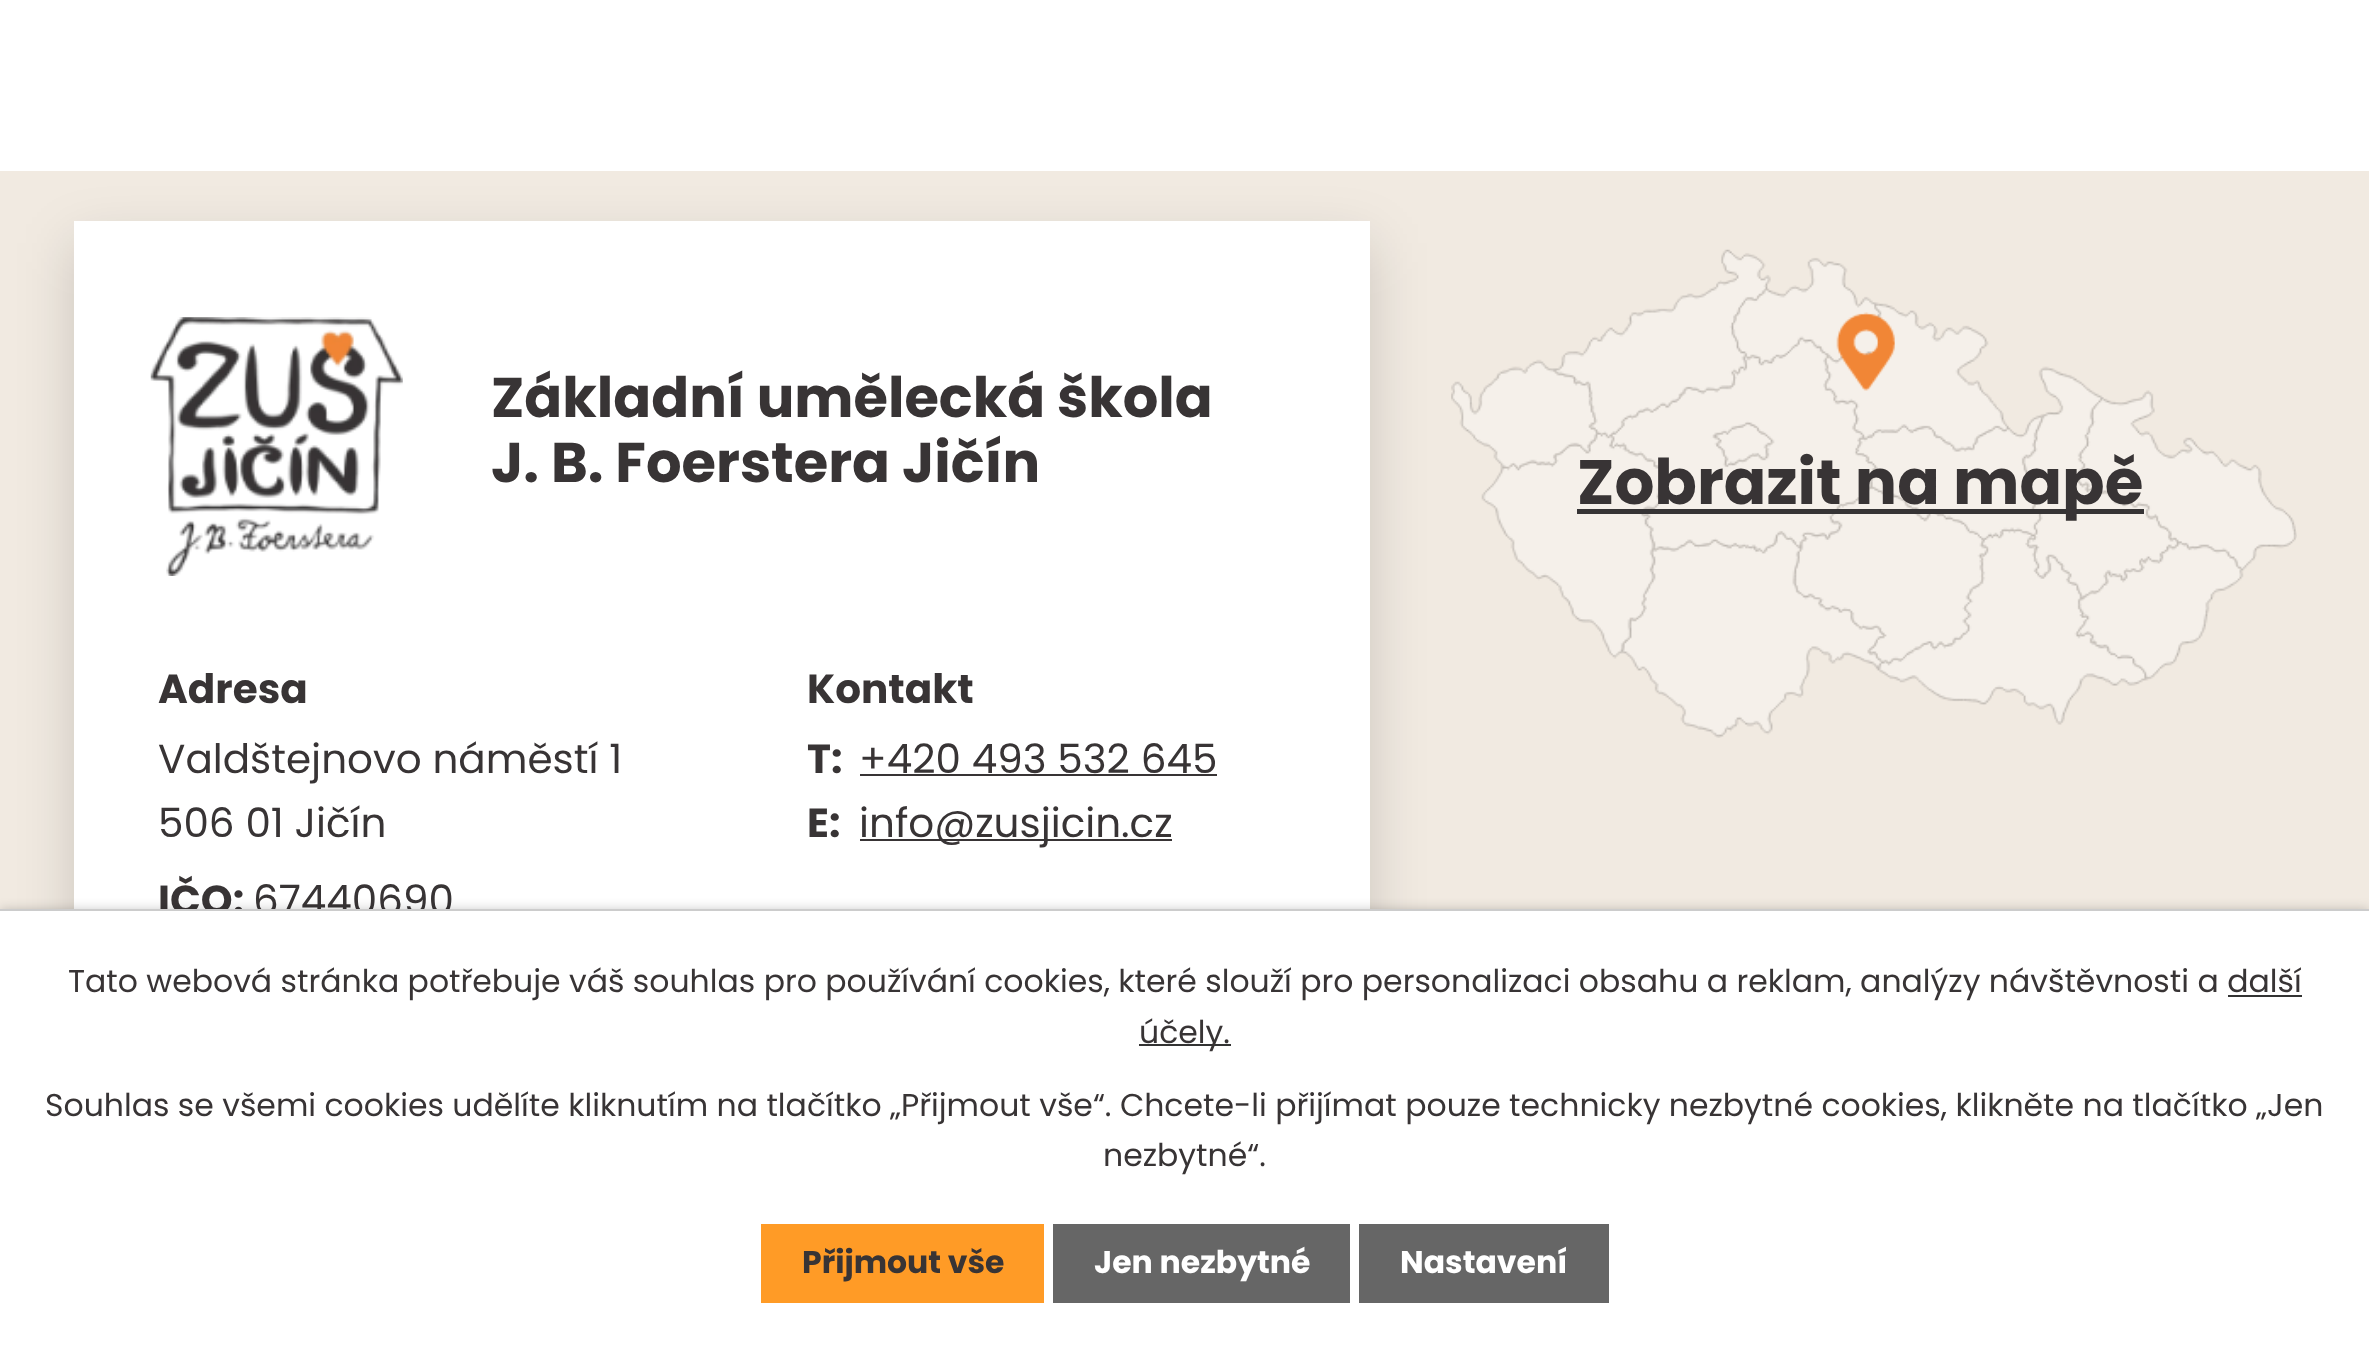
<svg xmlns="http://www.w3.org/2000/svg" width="2369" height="1345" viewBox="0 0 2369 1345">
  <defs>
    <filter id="blur1" x="-50%" y="-200%" width="200%" height="500%"><feGaussianBlur stdDeviation="28"/></filter>
    <filter id="blur2" x="-50%" y="-200%" width="200%" height="500%"><feGaussianBlur stdDeviation="5.5"/></filter>
  </defs>
  <rect width="100%" height="100%" fill="#ffffff"/>
  <rect x="0" y="171" width="2369" height="738" fill="#f1eae1"/>
  <rect x="74" y="243" width="1296" height="788" fill="#000000" fill-opacity="0.16" filter="url(#blur1)"/>
  <rect x="74" y="221" width="1296" height="688" fill="#ffffff"/>
  <image x="150" y="317" width="253" height="259" href="img1.png"/>
  <text x="491" y="417" font-family="Poppins" font-size="55.9" font-weight="bold" fill="#383435">Základní umělecká škola</text>
  <text x="491" y="482" font-family="Poppins" font-size="55.9" font-weight="bold" fill="#383435">J. B. Foerstera Jičín</text>
  <text x="158" y="703" font-family="Poppins" font-size="40.5" font-weight="bold" fill="#383435">Adresa</text>
  <text x="158" y="773" font-family="Poppins" font-size="40.5" fill="#383435">Valdštejnovo náměstí 1</text>
  <text x="158" y="837" font-family="Poppins" font-size="40.5" fill="#383435">506 01 Jičín</text>
  <text x="158" y="914" font-family="Poppins" font-size="40.5" font-weight="bold" fill="#383435">IČO:</text>
  <text x="253" y="914" font-family="Poppins" font-size="40.5" fill="#383435">67440690</text>
  <text x="807" y="703" font-family="Poppins" font-size="40.5" font-weight="bold" fill="#383435">Kontakt</text>
  <text x="807" y="773" font-family="Poppins" font-size="40.5" font-weight="bold" fill="#383435">T:</text>
  <text x="859" y="773" font-family="Poppins" font-size="40.5" fill="#383435">+420 493 532 645</text>
  <rect x="860" y="774" width="357" height="2" fill="#383435"/>
  <text x="807" y="837" font-family="Poppins" font-size="40.5" font-weight="bold" fill="#383435">E:</text>
  <rect x="860" y="839" width="312" height="2" fill="#383435"/>
  <text x="859" y="837" font-family="Poppins" font-size="40.5" fill="#383435">info@zusjicin.cz</text>
  <image x="1451" y="249" width="846" height="489" href="img2.png"/>
  <rect x="1577" y="509" width="567" height="5" fill="#363435"/>
  <text x="1577" y="504" font-family="Poppins" font-size="62.75" font-weight="bold" fill="#383435">Zobrazit na mapě</text>
  <rect x="0" y="909" width="2369" height="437" fill="#000000" fill-opacity="0.2" filter="url(#blur2)"/>
  <rect x="0" y="911" width="2369" height="434" fill="#ffffff"/>
  <rect x="0" y="909" width="2369" height="2" fill="#cccccc"/>
  <text x="68" y="992" font-family="Poppins" font-size="31.5" fill="#383435">Tato webová stránka potřebuje váš souhlas pro používání cookies, které slouží pro personalizaci obsahu a reklam, analýzy návštěvnosti a další</text>
  <rect x="1139" y="1044" width="92" height="2" fill="#333333"/>
  <text x="1139" y="1043" font-family="Poppins" font-size="31.5" fill="#383435">účely.</text>
  <rect x="2228" y="995" width="74" height="2" fill="#333333"/>
  <text x="45" y="1116" font-family="Poppins" font-size="31.5" fill="#383435">Souhlas se všemi cookies udělíte kliknutím na tlačítko „Přijmout vše“. Chcete-li přijímat pouze technicky nezbytné cookies, klikněte na tlačítko „Jen</text>
  <text x="1103" y="1166" font-family="Poppins" font-size="31.5" fill="#383435">nezbytné“.</text>
  <rect x="761" y="1224" width="283" height="79" fill="#ff9b26"/>
  <text x="802" y="1273" font-family="Poppins" font-size="31.5" font-weight="bold" fill="#383435">Přijmout vše</text>
  <rect x="1053" y="1224" width="297" height="79" fill="#666666"/>
  <text x="1094" y="1273" font-family="Poppins" font-size="31.5" font-weight="bold" fill="#ffffff">Jen nezbytné</text>
  <rect x="1359" y="1224" width="250" height="79" fill="#666666"/>
  <text x="1400" y="1273" font-family="Poppins" font-size="31.5" font-weight="bold" fill="#ffffff">Nastavení</text>
</svg>
